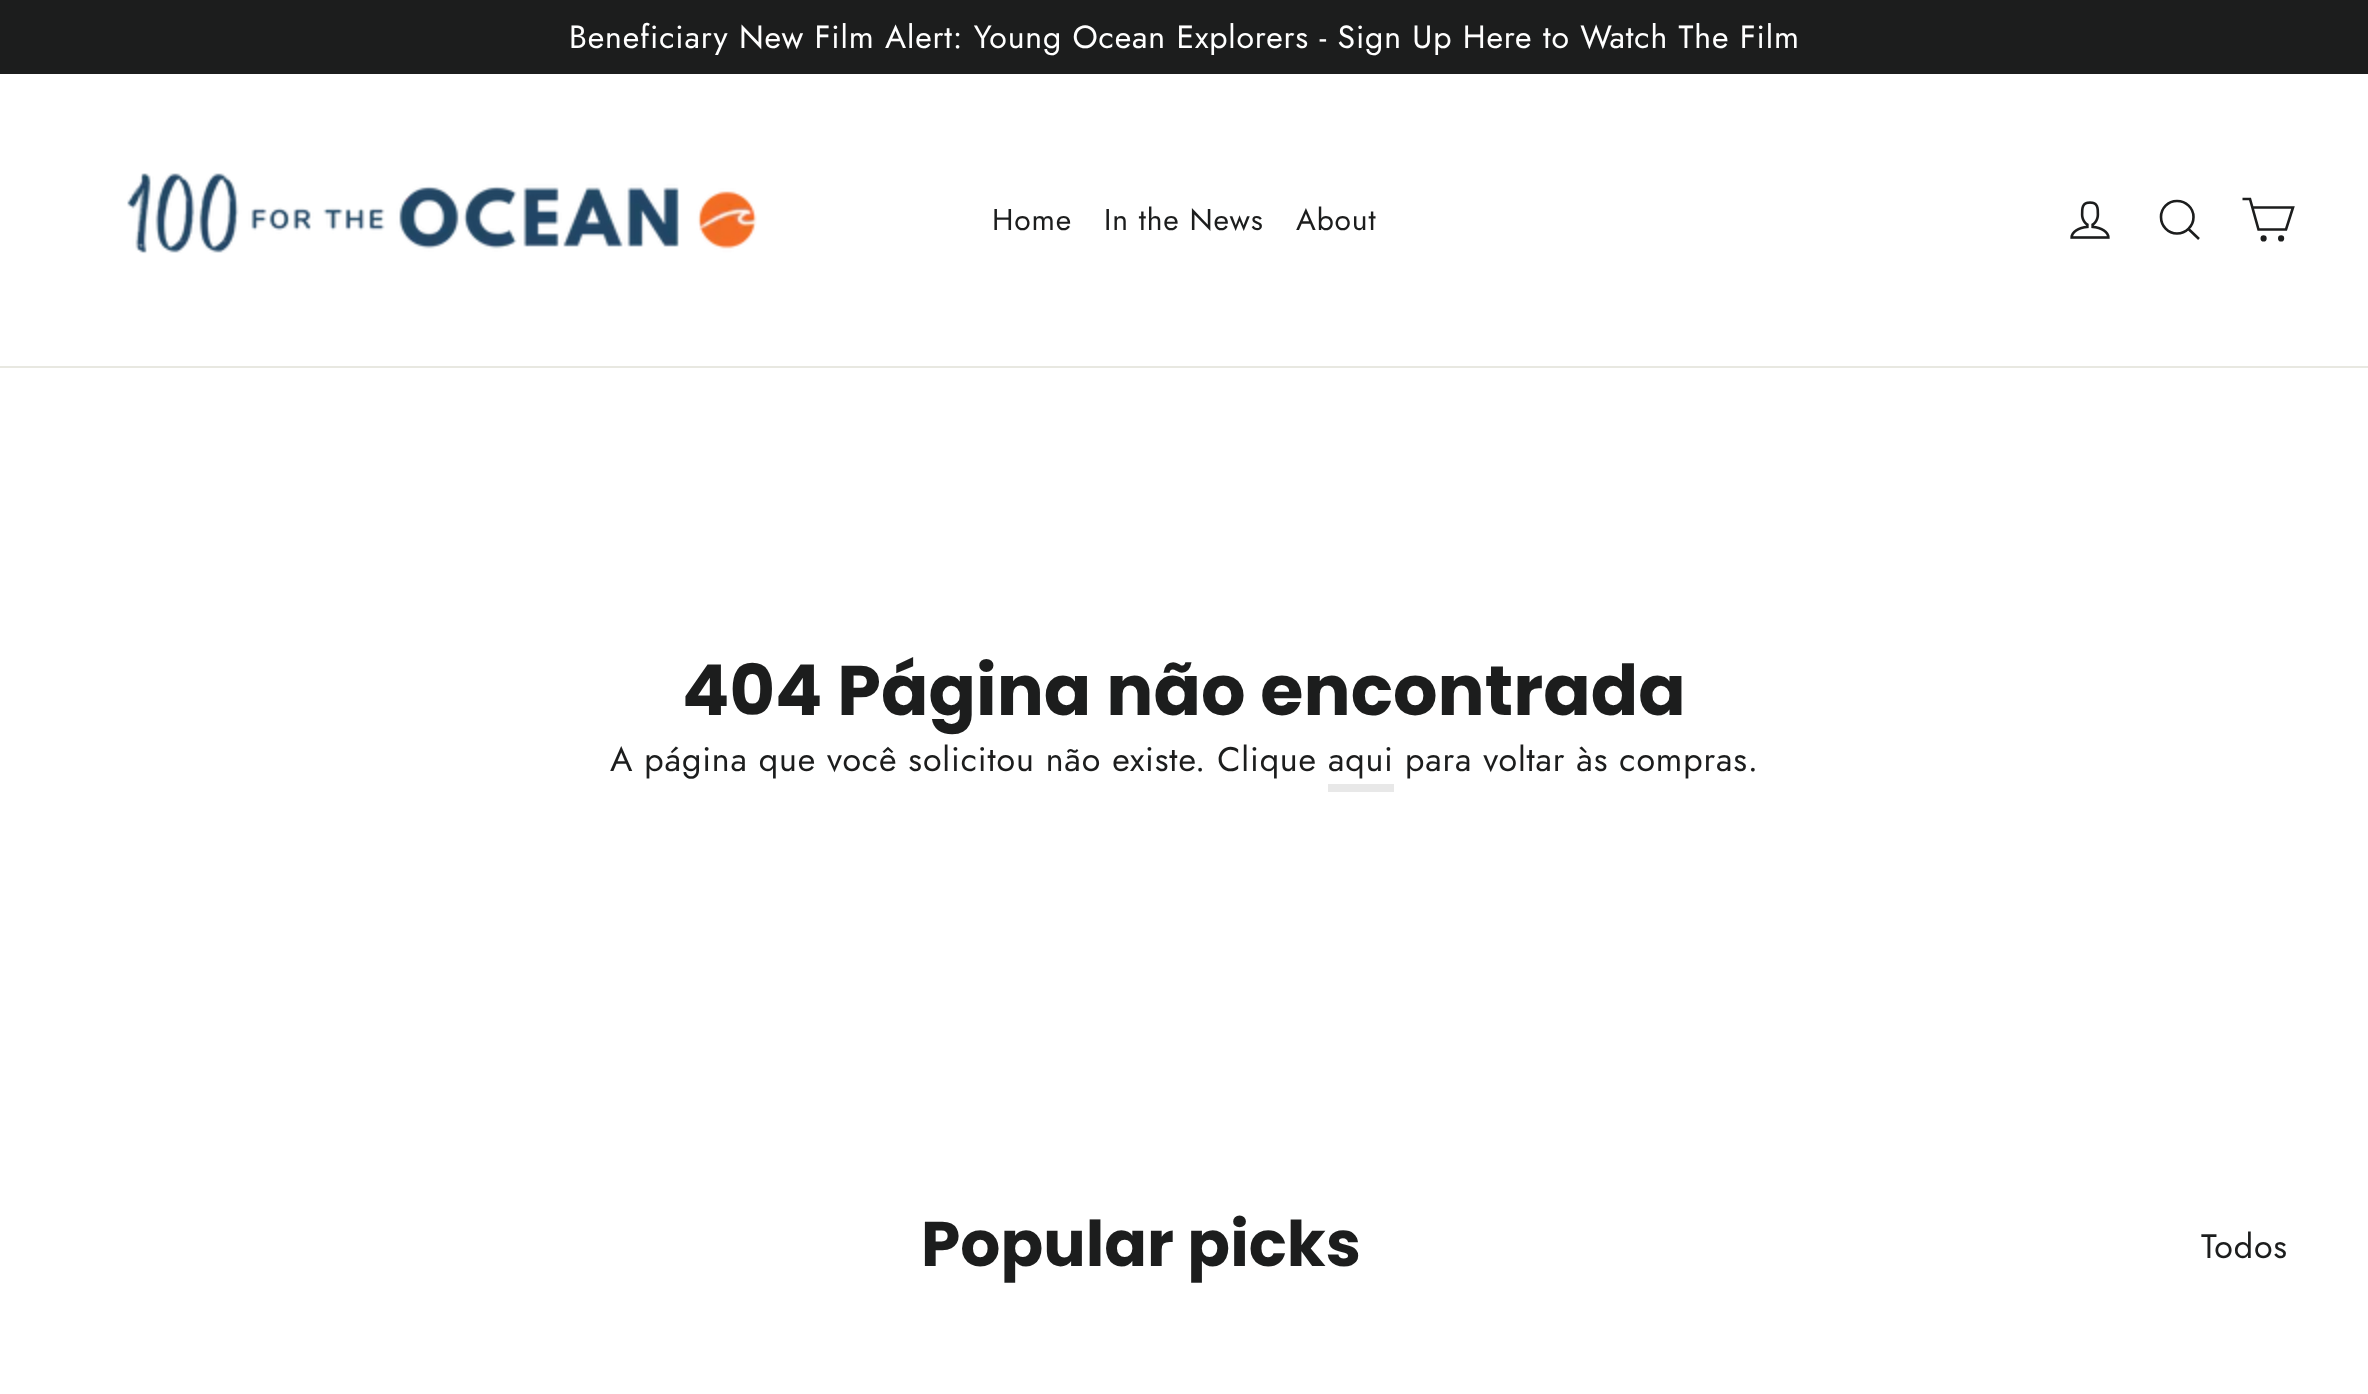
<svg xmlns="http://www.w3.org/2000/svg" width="2368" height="1394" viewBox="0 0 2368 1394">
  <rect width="100%" height="100%" fill="#ffffff"/>
  <rect x="0" y="0" width="2368" height="74" fill="#1c1d1d"/>
  <text x="569" y="48" font-family="Jost" font-size="32" letter-spacing="0.85" fill="#ffffff">Beneficiary New Film Alert: Young Ocean Explorers - Sign Up Here to Watch The Film</text>
  <rect x="0" y="366" width="2368" height="2" fill="#e8e8e1"/>
  <image x="127" y="173" width="630" height="81" href="img1.png"/>
  <text x="992" y="230" font-family="Jost" font-size="30" letter-spacing="0.85" fill="#1c1d1d">Home</text>
  <text x="1104" y="230" font-family="Jost" font-size="30" letter-spacing="0.85" fill="#1c1d1d">In the News</text>
  <text x="1296" y="230" font-family="Jost" font-size="30" letter-spacing="0.85" fill="#1c1d1d">About</text>
  <image x="2070" y="201" width="40" height="38" href="img2.png"/>
  <path d="M2193.5 217C2193.5 226 2186 233.5 2177 233.5C2168 233.5 2161 226 2161 217C2161 208 2168 201 2177 201C2186 201 2193.5 208 2193.5 217ZM2199 239L2188.5 229" fill="none" stroke="#1c1d1d" stroke-width="2.6"/>
  <path d="M2252 207.5H2293L2286 229.5H2258.5L2250 199H2242.5" fill="none" stroke="#1c1d1d" stroke-width="2.6"/>
  <circle cx="2263.6" cy="238.4" r="1.8" fill="#1c1d1d" stroke="#1c1d1d" stroke-width="2.6"/>
  <circle cx="2281.1" cy="238.4" r="1.8" fill="#1c1d1d" stroke="#1c1d1d" stroke-width="2.6"/>
  <text x="682" y="715" font-family="Poppins" font-size="70" font-weight="bold" fill="#1c1d1d">404 Página não encontrada</text>
  <text x="610" y="771" font-family="Jost" font-size="34" letter-spacing="0.85" fill="#1c1d1d">A página que você solicitou não existe. Clique aqui</text>
  <text x="1405" y="771" font-family="Jost" font-size="34" letter-spacing="0.85" fill="#1c1d1d">para voltar às compras.</text>
  <rect x="1328" y="784" width="66" height="8" fill="#e8e8e8"/>
  <text x="921" y="1266" font-family="Poppins" font-size="63" font-weight="bold" fill="#1c1d1d">Popular picks</text>
  <text x="2201" y="1258" font-family="Jost" font-size="34" letter-spacing="0.85" fill="#1c1d1d">Todos</text>
</svg>
